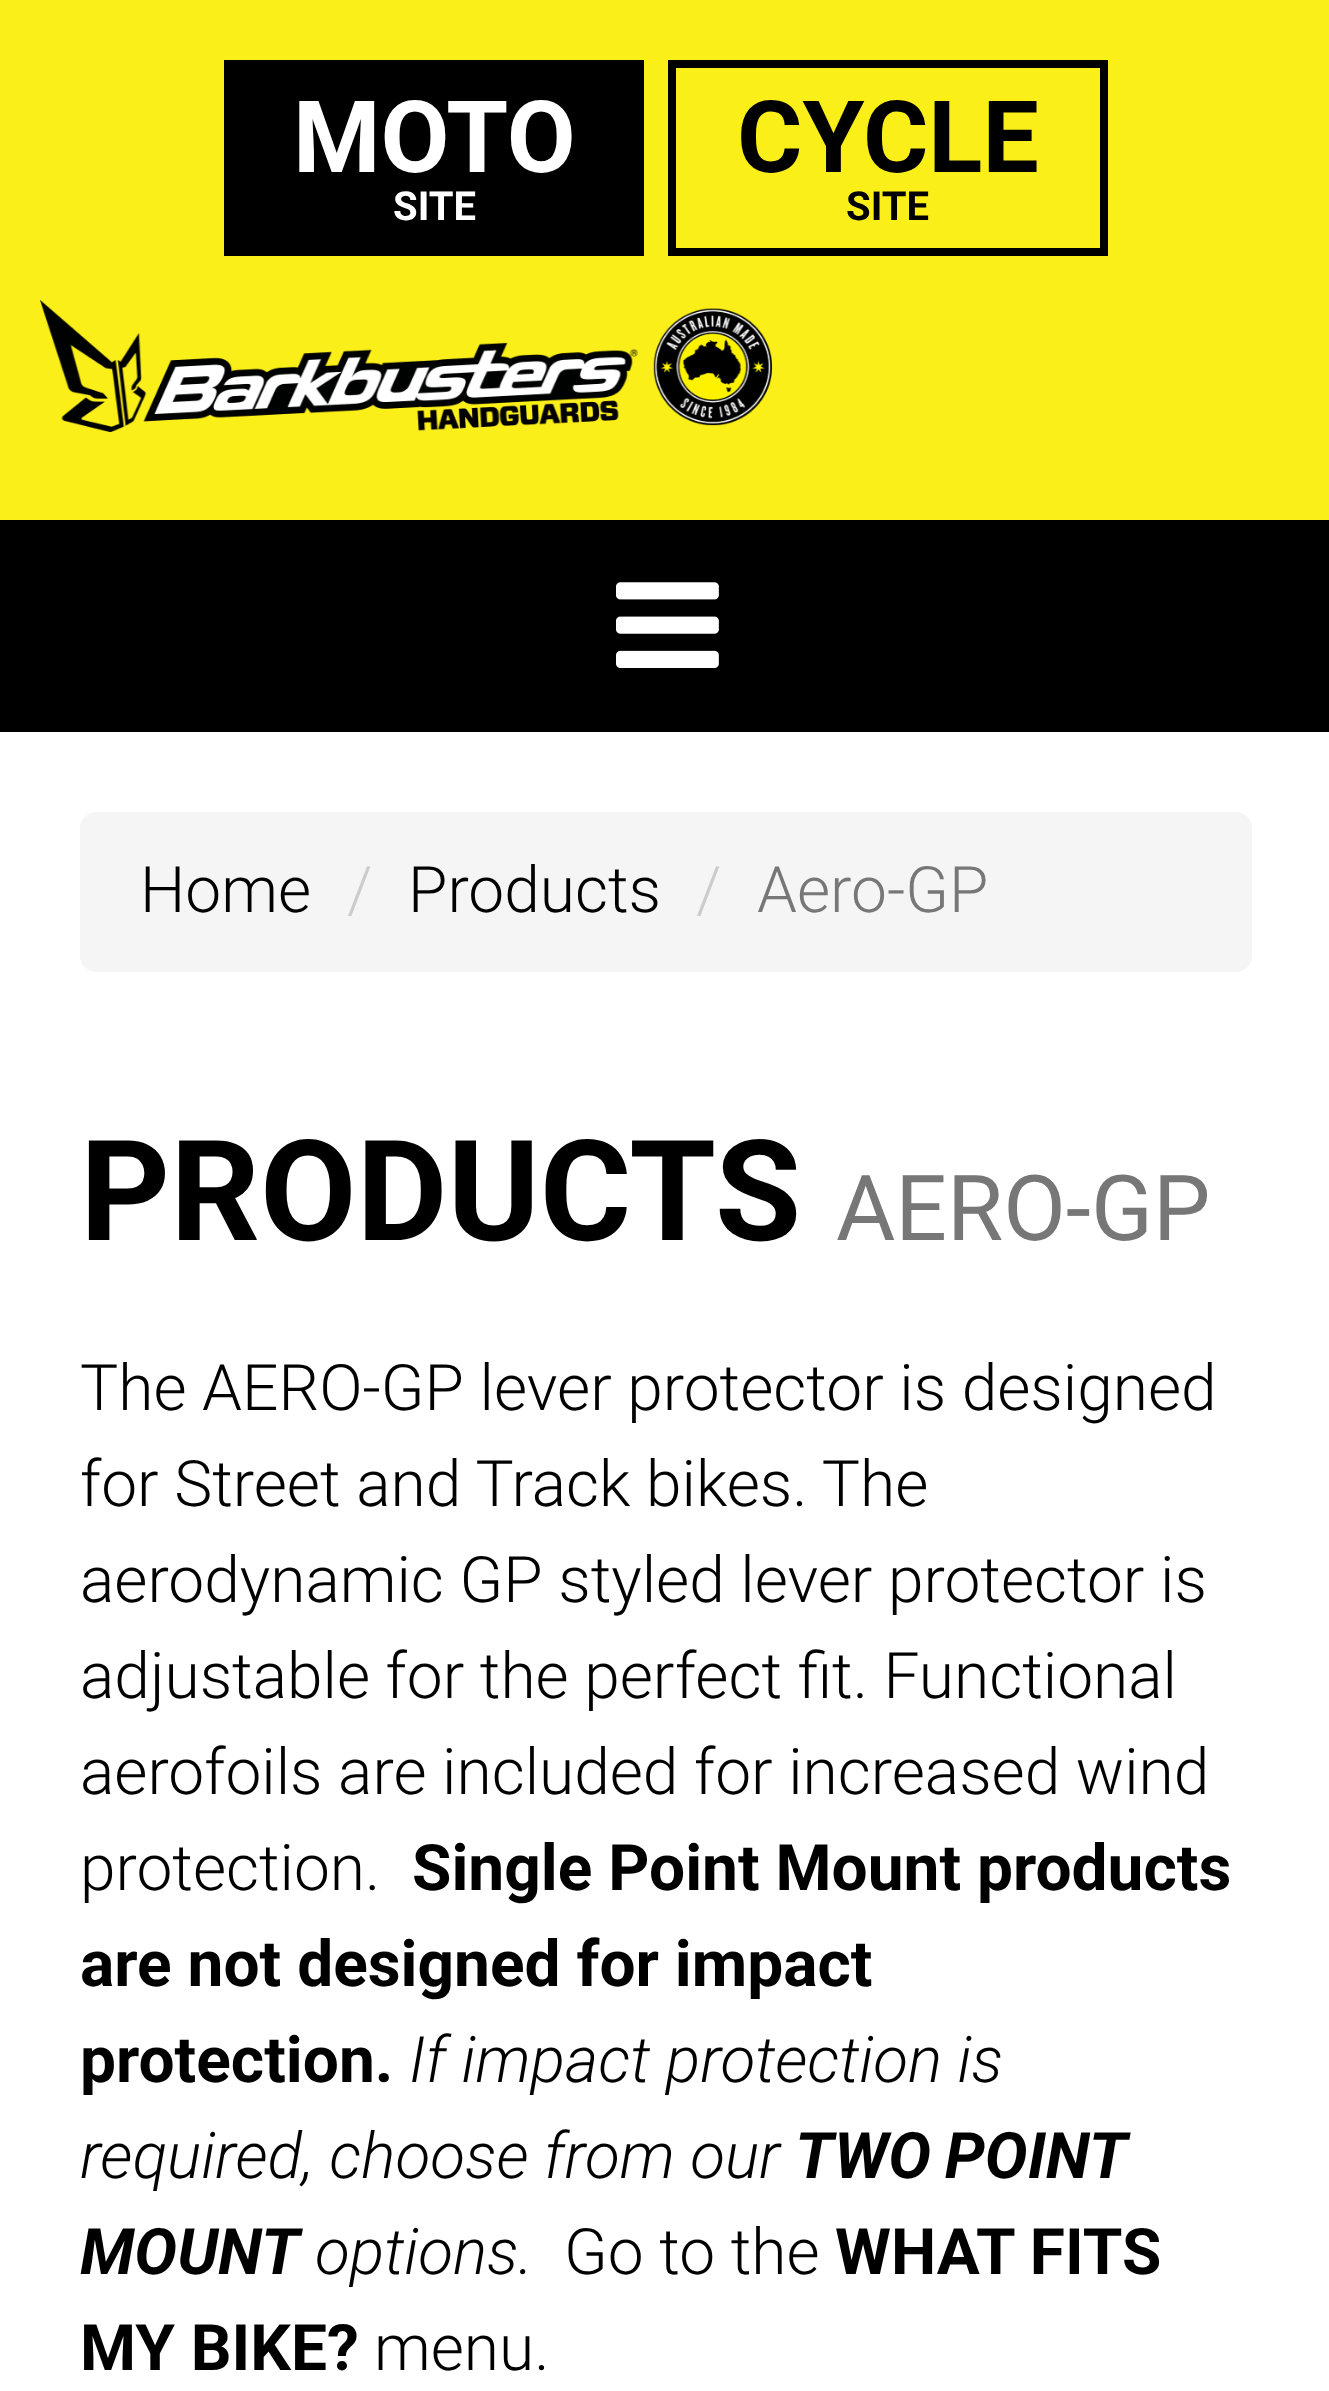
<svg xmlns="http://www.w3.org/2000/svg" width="1329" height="2391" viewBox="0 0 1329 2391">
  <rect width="100%" height="100%" fill="#ffffff"/>
  <rect x="0" y="0" width="1329" height="520" fill="#fbef1a"/>
  <rect x="224" y="60" width="420" height="196" fill="#000000"/>
  <text x="293" y="172" font-family="Roboto" font-size="100" font-weight="bold" fill="#ffffff">MOTO</text>
  <text x="393" y="220" font-family="Roboto" font-size="40" font-weight="bold" fill="#ffffff">SITE</text>
  <rect x="672" y="64" width="432" height="188" fill="none" stroke="#000000" stroke-width="8"/>
  <text x="737" y="172" font-family="Roboto" font-size="100" font-weight="bold" fill="#000000">CYCLE</text>
  <text x="846" y="220" font-family="Roboto" font-size="40" font-weight="bold" fill="#000000">SITE</text>
  <image x="40" y="300" width="732" height="132" href="img1.png"/>
  <rect x="0" y="520" width="1329" height="212" fill="#000000"/>
  <image x="616" y="582" width="103" height="86" href="img2.png"/>
  <rect x="80" y="812" width="1172" height="160" rx="16" fill="#f5f5f5"/>
  <text x="140" y="912" font-family="Roboto" font-size="64" font-weight="300" fill="#000000">Home</text>
  <text x="347" y="912" font-family="Roboto" font-size="64" font-weight="300" fill="#cccccc">/</text>
  <text x="408" y="912" font-family="Roboto" font-size="64" font-weight="300" fill="#000000">Products</text>
  <text x="696" y="912" font-family="Roboto" font-size="64" font-weight="300" fill="#cccccc">/</text>
  <text x="757" y="912" font-family="Roboto" font-size="64" font-weight="300" fill="#777777">Aero-GP</text>
  <text x="80" y="1240" font-family="Roboto" font-size="140" font-weight="bold" fill="#000000">PRODUCTS</text>
  <text x="836" y="1240" font-family="Roboto" font-size="91" fill="#777777">AERO-GP</text>
  <text x="80" y="1410" font-family="Roboto" font-size="64" font-weight="300" fill="#000000">The AERO-GP lever protector is designed</text>
  <text x="80" y="1506" font-family="Roboto" font-size="64" font-weight="300" fill="#000000">for Street and Track bikes. The</text>
  <text x="80" y="1602" font-family="Roboto" font-size="64" font-weight="300" fill="#000000">aerodynamic GP styled lever protector is</text>
  <text x="80" y="1698" font-family="Roboto" font-size="64" font-weight="300" fill="#000000">adjustable for the perfect fit. Functional</text>
  <text x="80" y="1794" font-family="Roboto" font-size="64" font-weight="300" fill="#000000">aerofoils are included for increased wind</text>
  <text x="80" y="1890" font-family="Roboto" font-size="64" font-weight="300" fill="#000000">protection.</text>
  <text x="412" y="1890" font-family="Roboto" font-size="64" font-weight="bold" fill="#000000">Single Point Mount products</text>
  <text x="80" y="1986" font-family="Roboto" font-size="64" font-weight="bold" fill="#000000">are not designed for impact</text>
  <text x="80" y="2082" font-family="Roboto" font-size="64" font-weight="bold" fill="#000000">protection.</text>
  <text x="409" y="2082" font-family="Roboto" font-size="64" font-weight="300" font-style="italic" fill="#000000">If impact protection is</text>
  <text x="80" y="2178" font-family="Roboto" font-size="64" font-weight="300" font-style="italic" fill="#000000">required, choose from our</text>
  <text x="795" y="2178" word-spacing="-2" font-family="Roboto" font-size="64" font-weight="bold" font-style="italic" fill="#000000">TWO POINT</text>
  <text x="80" y="2274" font-family="Roboto" font-size="64" font-weight="bold" font-style="italic" fill="#000000">MOUNT</text>
  <text x="315" y="2274" font-family="Roboto" font-size="64" font-weight="300" font-style="italic" fill="#000000">options.</text>
  <text x="564" y="2274" font-family="Roboto" font-size="64" font-weight="300" fill="#000000">Go to the</text>
  <text x="835" y="2274" font-family="Roboto" font-size="64" font-weight="bold" fill="#000000">WHAT FITS</text>
  <text x="80" y="2370" font-family="Roboto" font-size="64" font-weight="bold" fill="#000000">MY BIKE?</text>
  <text x="374" y="2370" font-family="Roboto" font-size="64" font-weight="300" fill="#000000">menu.</text>
</svg>
